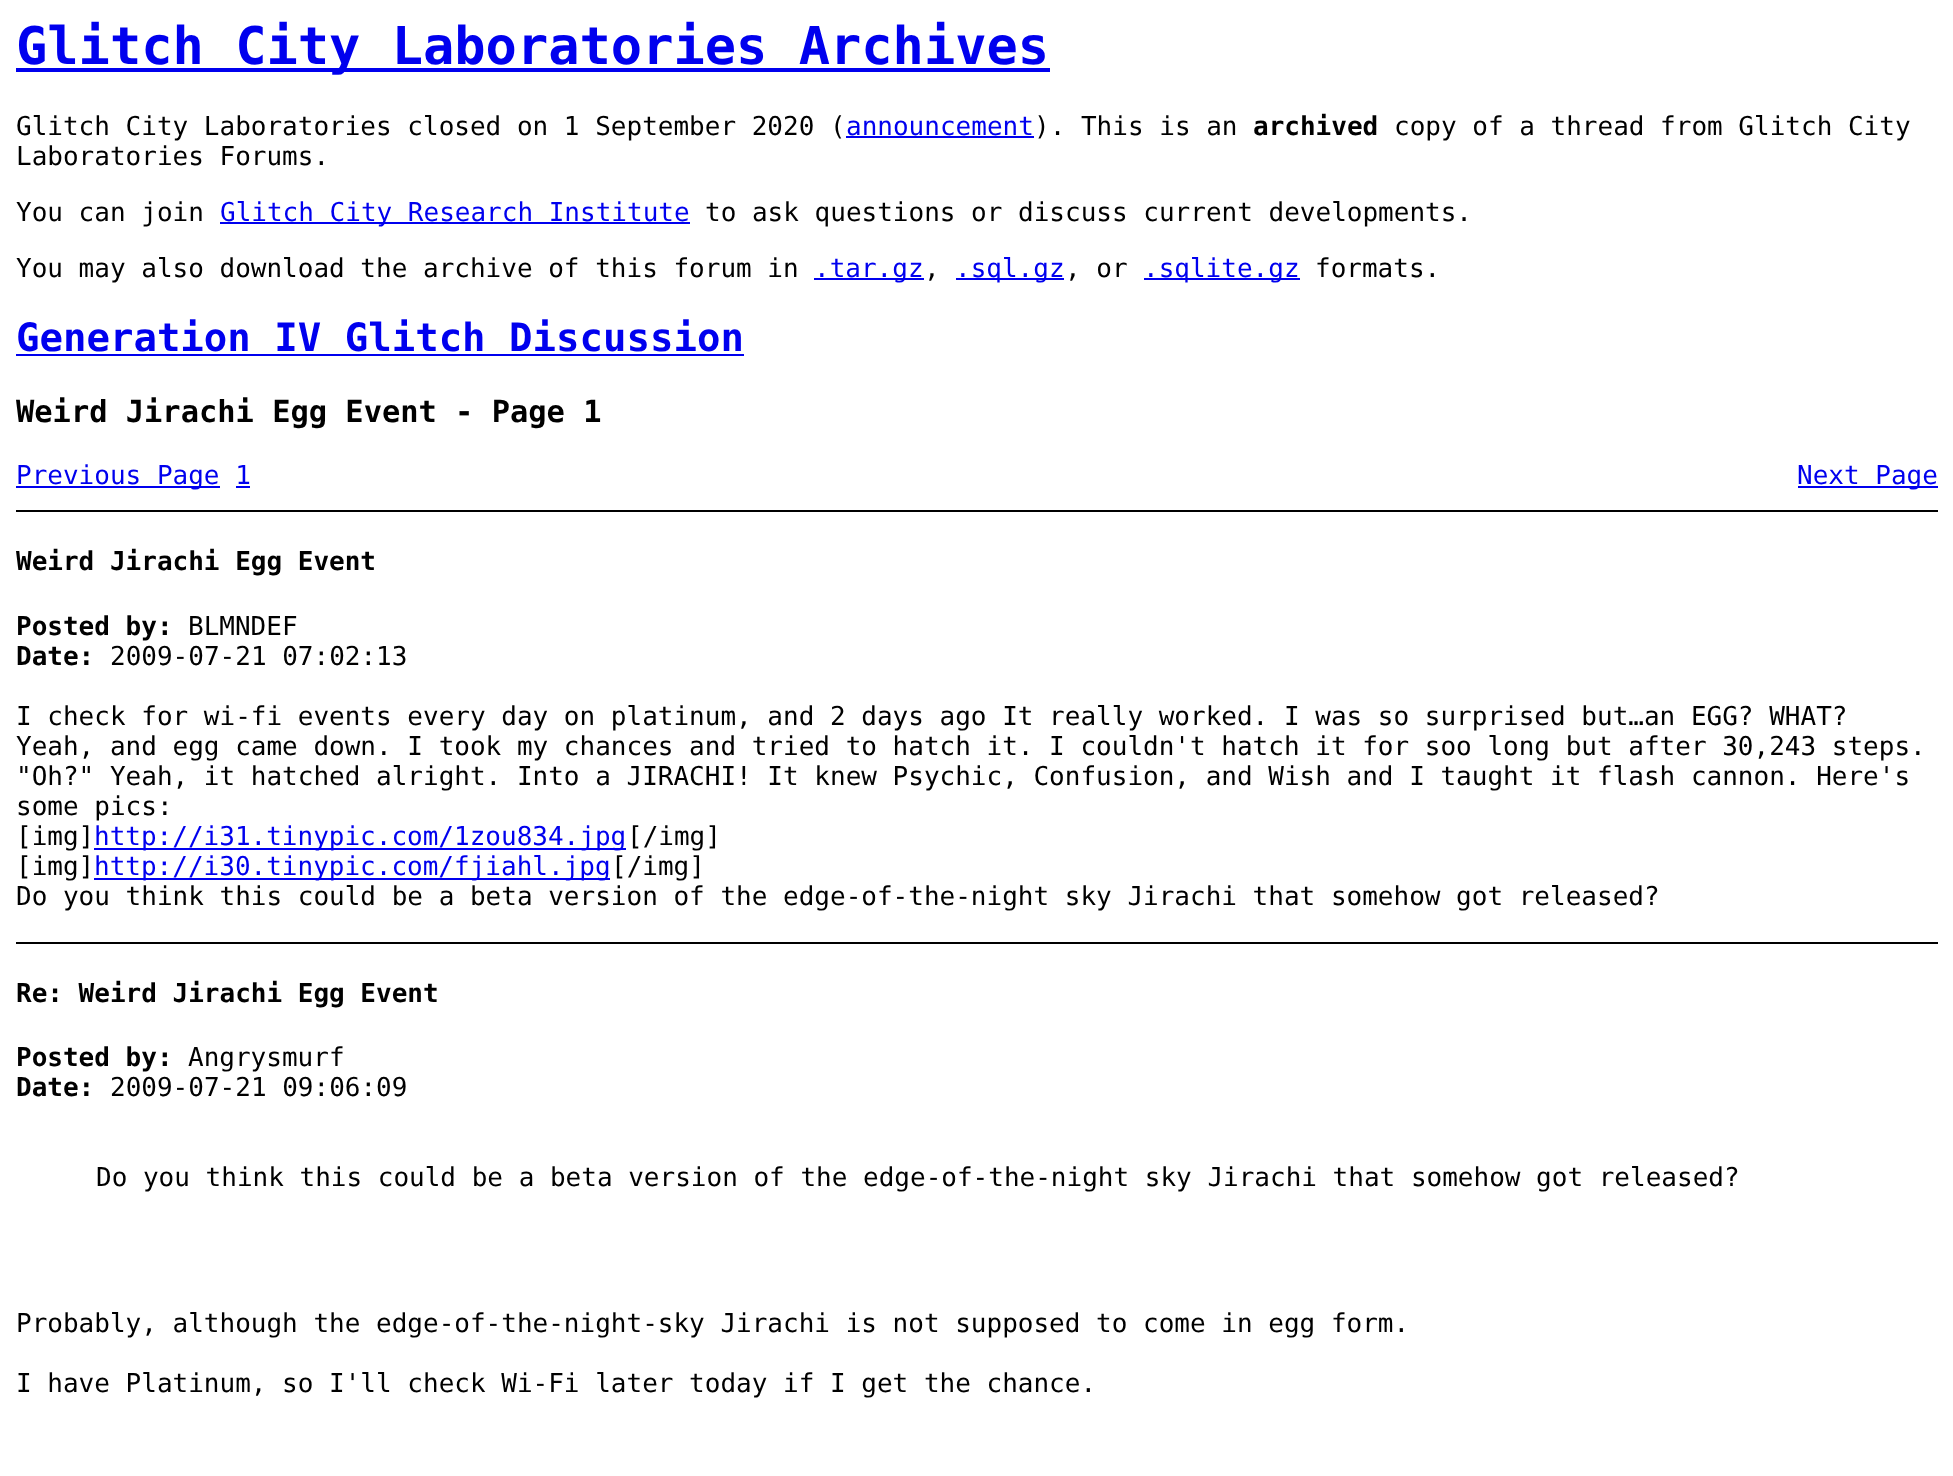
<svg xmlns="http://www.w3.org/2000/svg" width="1953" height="1476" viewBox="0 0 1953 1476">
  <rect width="100%" height="100%" fill="#ffffff"/>
  <rect x="16" y="68" width="1034" height="4" fill="#0000ee"/>
  <text x="16" y="64" font-family="DejaVu Sans Mono" font-size="52" font-weight="bold" fill="#0000ee">Glitch City Laboratories Archives</text>
  <text x="16" y="135" font-family="DejaVu Sans Mono" font-size="26" fill="#000000">Glitch City Laboratories closed on 1 September 2020 (</text>
  <text x="846" y="135" font-family="DejaVu Sans Mono" font-size="26" fill="#0000ee">announcement</text>
  <rect x="846" y="136" width="188" height="2" fill="#0000ee"/>
  <text x="1034" y="135" font-family="DejaVu Sans Mono" font-size="26" fill="#000000">). This is an</text>
  <text x="1253" y="135" font-family="DejaVu Sans Mono" font-size="26" font-weight="bold" fill="#000000">archived</text>
  <text x="1394" y="135" font-family="DejaVu Sans Mono" font-size="26" fill="#000000">copy of a thread from Glitch City</text>
  <text x="16" y="165" font-family="DejaVu Sans Mono" font-size="26" fill="#000000">Laboratories Forums.</text>
  <text x="16" y="221" font-family="DejaVu Sans Mono" font-size="26" fill="#000000">You can join</text>
  <rect x="220" y="222" width="470" height="2" fill="#0000ee"/>
  <text x="220" y="221" font-family="DejaVu Sans Mono" font-size="26" fill="#0000ee">Glitch City Research Institute</text>
  <text x="705" y="221" font-family="DejaVu Sans Mono" font-size="26" fill="#000000">to ask questions or discuss current developments.</text>
  <text x="16" y="277" font-family="DejaVu Sans Mono" font-size="26" fill="#000000">You may also download the archive of this forum in</text>
  <rect x="814" y="278" width="110" height="2" fill="#0000ee"/>
  <text x="814" y="277" font-family="DejaVu Sans Mono" font-size="26" fill="#0000ee">.tar.gz</text>
  <text x="924" y="277" font-family="DejaVu Sans Mono" font-size="26" fill="#000000">,</text>
  <rect x="956" y="278" width="108" height="2" fill="#0000ee"/>
  <text x="955" y="277" font-family="DejaVu Sans Mono" font-size="26" fill="#0000ee">.sql.gz</text>
  <text x="1065" y="277" font-family="DejaVu Sans Mono" font-size="26" fill="#000000">, or</text>
  <rect x="1144" y="278" width="156" height="2" fill="#0000ee"/>
  <text x="1143" y="277" font-family="DejaVu Sans Mono" font-size="26" fill="#0000ee">.sqlite.gz</text>
  <text x="1315" y="277" font-family="DejaVu Sans Mono" font-size="26" fill="#000000">formats.</text>
  <text x="16" y="351" font-family="DejaVu Sans Mono" font-size="39" font-weight="bold" fill="#0000ee">Generation IV Glitch Discussion</text>
  <rect x="16" y="354" width="728" height="2" fill="#0000ee"/>
  <text x="16" y="422" font-family="DejaVu Sans Mono" font-size="30.4" font-weight="bold" fill="#000000">Weird Jirachi Egg Event - Page 1</text>
  <rect x="16" y="486" width="204" height="2" fill="#0000ee"/>
  <text x="16" y="484" font-family="DejaVu Sans Mono" font-size="26" fill="#0000ee">Previous Page 1</text>
  <rect x="1798" y="486" width="140" height="2" fill="#0000ee"/>
  <text x="1797" y="484" font-family="DejaVu Sans Mono" font-size="26" fill="#0000ee">Next Page</text>
  <rect x="236" y="486" width="14" height="2" fill="#0000ee"/>
  <rect x="16" y="510" width="1922" height="2" fill="#000000"/>
  <text x="16" y="570" font-family="DejaVu Sans Mono" font-size="26" font-weight="bold" fill="#000000">Weird Jirachi Egg Event</text>
  <text x="16" y="635" font-family="DejaVu Sans Mono" font-size="26" font-weight="bold" fill="#000000">Posted by:</text>
  <text x="188" y="635" font-family="DejaVu Sans Mono" font-size="26" fill="#000000">BLMNDEF</text>
  <text x="16" y="665" font-family="DejaVu Sans Mono" font-size="26" font-weight="bold" fill="#000000">Date:</text>
  <text x="110" y="665" font-family="DejaVu Sans Mono" font-size="26" fill="#000000">2009-07-21 07:02:13</text>
  <text x="16" y="725" font-family="DejaVu Sans Mono" font-size="26" fill="#000000">I check for wi-fi events every day on platinum, and 2 days ago It really worked. I was so surprised but…an EGG? WHAT?</text>
  <text x="16" y="755" font-family="DejaVu Sans Mono" font-size="26" fill="#000000">Yeah, and egg came down. I took my chances and tried to hatch it. I couldn't hatch it for soo long but after 30,243 steps.</text>
  <text x="16" y="785" font-family="DejaVu Sans Mono" font-size="26" fill="#000000">"Oh?" Yeah, it hatched alright. Into a JIRACHI! It knew Psychic, Confusion, and Wish and I taught it flash cannon. Here's</text>
  <text x="16" y="815" font-family="DejaVu Sans Mono" font-size="26" fill="#000000">some pics:</text>
  <text x="16" y="845" font-family="DejaVu Sans Mono" font-size="26" fill="#000000">[img]</text>
  <rect x="94" y="848" width="532" height="2" fill="#0000ee"/>
  <text x="94" y="845" font-family="DejaVu Sans Mono" font-size="26" fill="#0000ee">http://i31.tinypic.com/1zou834.jpg</text>
  <text x="627" y="845" font-family="DejaVu Sans Mono" font-size="26" fill="#000000">[/img]</text>
  <text x="16" y="875" font-family="DejaVu Sans Mono" font-size="26" fill="#000000">[img]</text>
  <rect x="94" y="878" width="516" height="2" fill="#0000ee"/>
  <text x="94" y="875" font-family="DejaVu Sans Mono" font-size="26" fill="#0000ee">http://i30.tinypic.com/fjiahl.jpg</text>
  <text x="611" y="875" font-family="DejaVu Sans Mono" font-size="26" fill="#000000">[/img]</text>
  <text x="16" y="905" font-family="DejaVu Sans Mono" font-size="26" fill="#000000">Do you think this could be a beta version of the edge-of-the-night sky Jirachi that somehow got released?</text>
  <rect x="16" y="942" width="1922" height="2" fill="#000000"/>
  <text x="16" y="1002" font-family="DejaVu Sans Mono" font-size="26" font-weight="bold" fill="#000000">Re: Weird Jirachi Egg Event</text>
  <text x="16" y="1066" font-family="DejaVu Sans Mono" font-size="26" font-weight="bold" fill="#000000">Posted by:</text>
  <text x="188" y="1066" font-family="DejaVu Sans Mono" font-size="26" fill="#000000">Angrysmurf</text>
  <text x="16" y="1096" font-family="DejaVu Sans Mono" font-size="26" font-weight="bold" fill="#000000">Date:</text>
  <text x="110" y="1096" font-family="DejaVu Sans Mono" font-size="26" fill="#000000">2009-07-21 09:06:09</text>
  <text x="96" y="1186" font-family="DejaVu Sans Mono" font-size="26" fill="#000000">Do you think this could be a beta version of the edge-of-the-night sky Jirachi that somehow got released?</text>
  <text x="16" y="1332" font-family="DejaVu Sans Mono" font-size="26" fill="#000000">Probably, although the edge-of-the-night-sky Jirachi is not supposed to come in egg form.</text>
  <text x="16" y="1392" font-family="DejaVu Sans Mono" font-size="26" fill="#000000">I have Platinum, so I'll check Wi-Fi later today if I get the chance.</text>
</svg>
